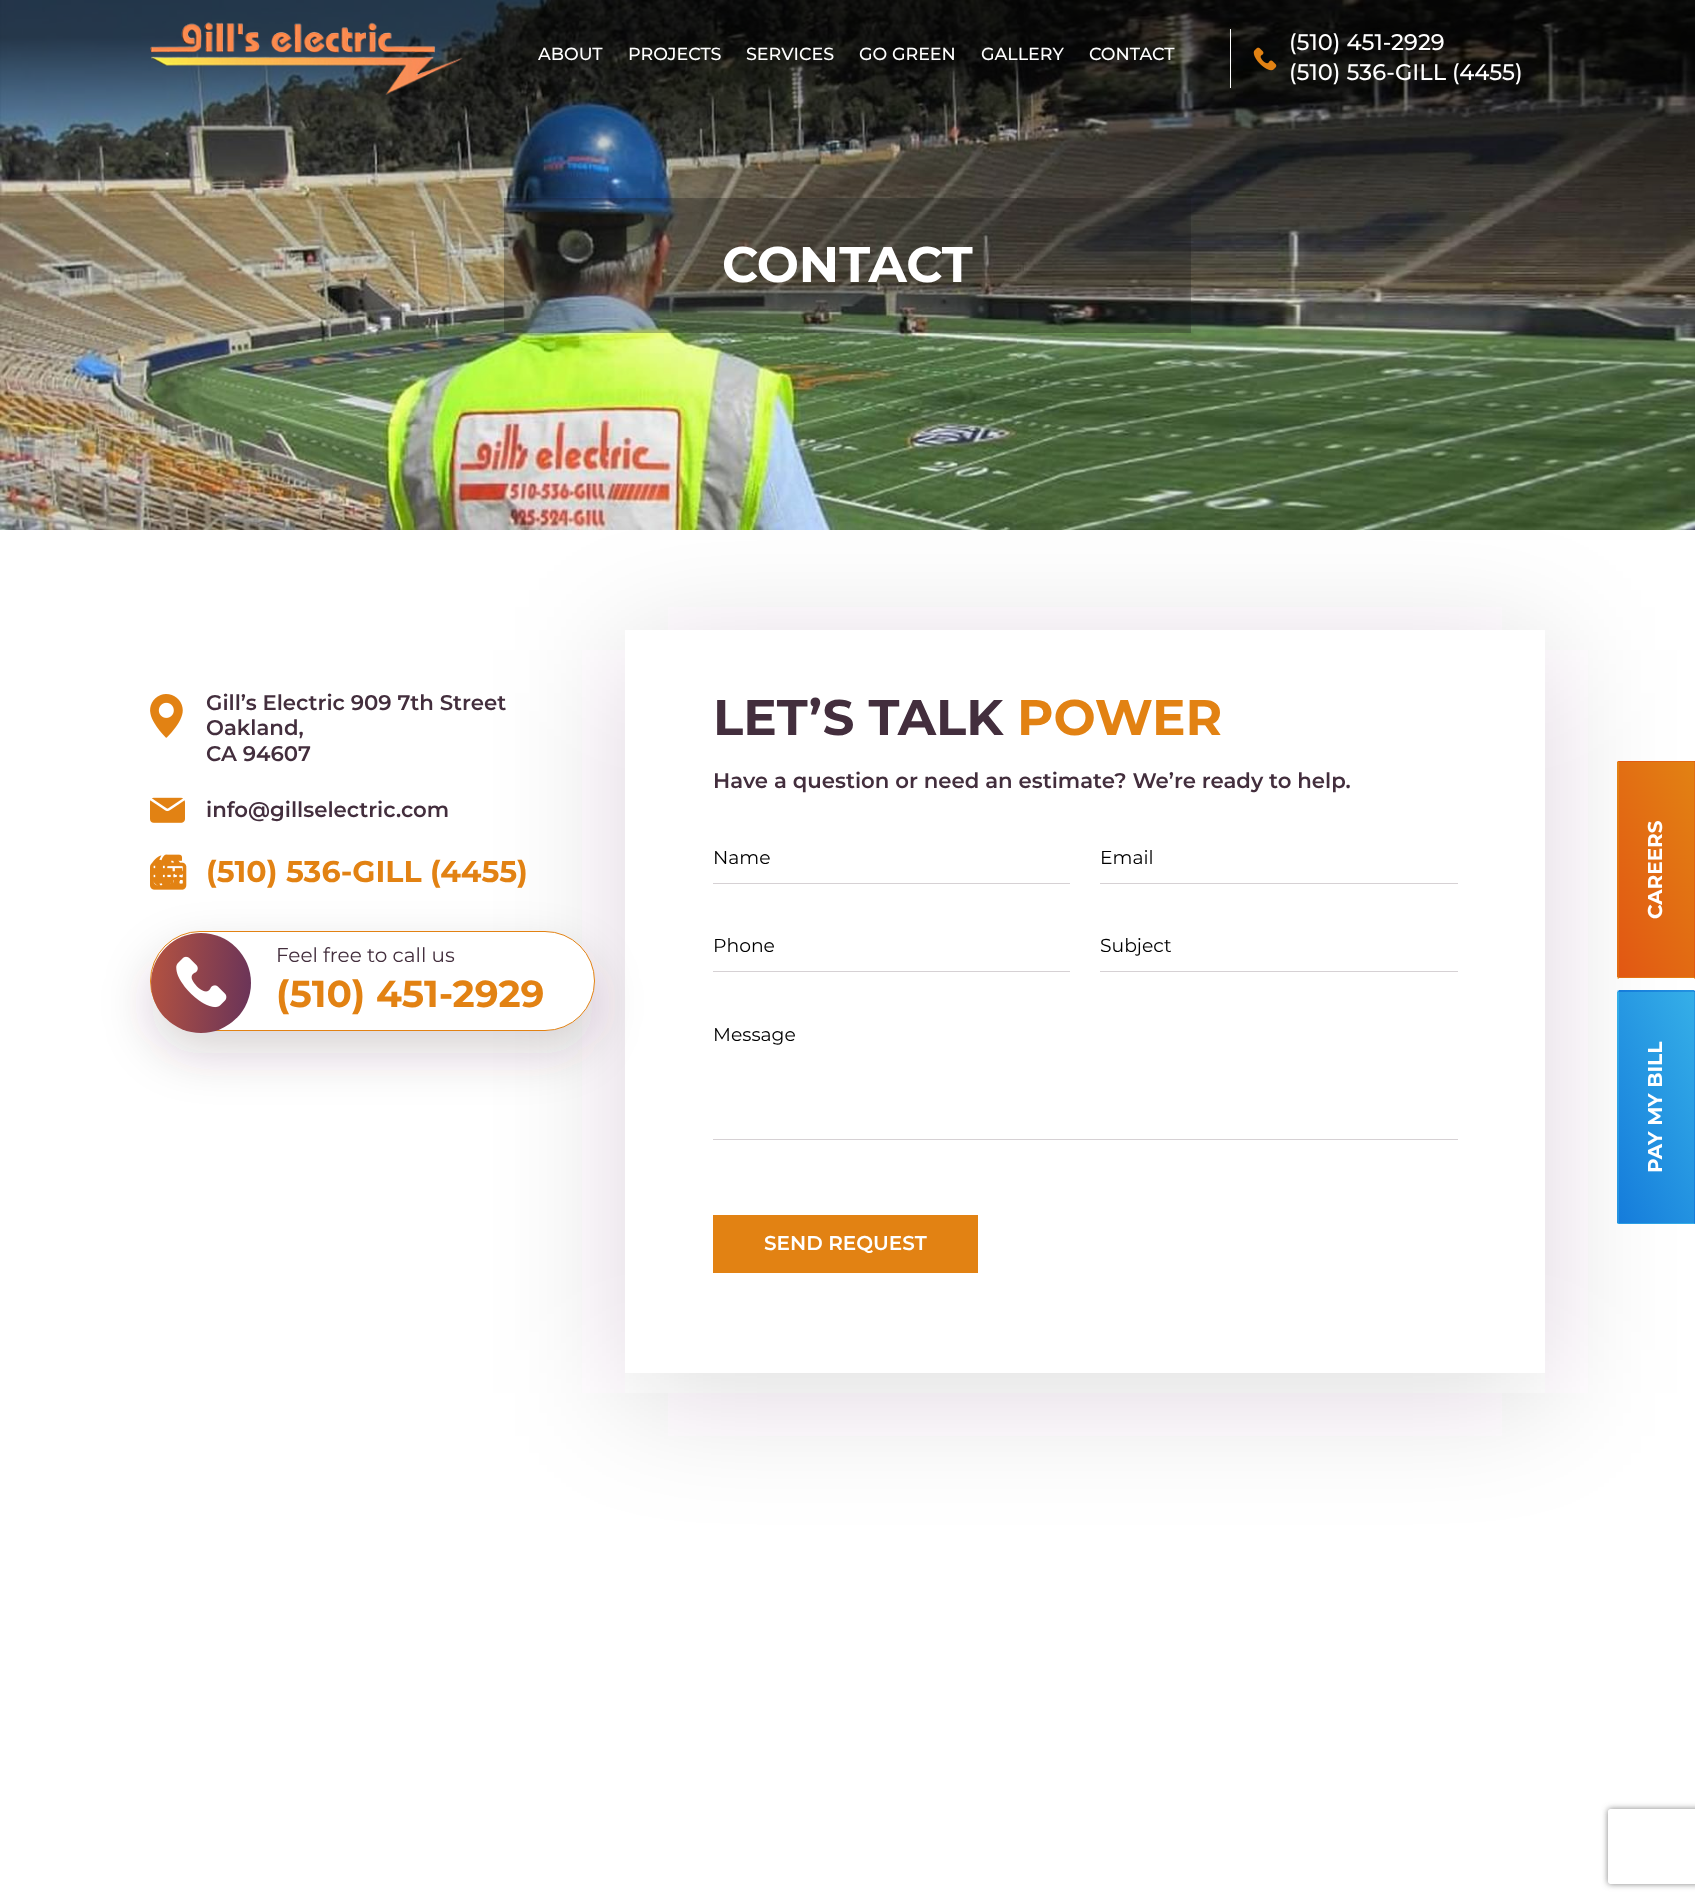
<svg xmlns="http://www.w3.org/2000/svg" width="1695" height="1901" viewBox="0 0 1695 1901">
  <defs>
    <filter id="blur1" x="-50%" y="-200%" width="200%" height="500%"><feGaussianBlur stdDeviation="64.5"/></filter>
    <filter id="blur2" x="-50%" y="-200%" width="200%" height="500%"><feGaussianBlur stdDeviation="25"/></filter>
    <linearGradient id="g1" gradientUnits="userSpaceOnUse" x1="147" y1="978" x2="255" y2="987"><stop offset="0" stop-color="#b65340"/><stop offset="1" stop-color="#683359"/></linearGradient>
    <linearGradient id="g2" gradientUnits="userSpaceOnUse" x1="1511" y1="1114" x2="1652" y2="1055"><stop offset="0" stop-color="#e25713"/><stop offset="1" stop-color="#e28213"/></linearGradient>
    <linearGradient id="g3" gradientUnits="userSpaceOnUse" x1="1511" y1="899" x2="1652" y2="840"><stop offset="0" stop-color="#e25713"/><stop offset="1" stop-color="#e28213"/></linearGradient>
    <linearGradient id="g4" gradientUnits="userSpaceOnUse" x1="1511" y1="684" x2="1652" y2="625"><stop offset="0" stop-color="#e25713"/><stop offset="1" stop-color="#e28213"/></linearGradient>
    <linearGradient id="g5" gradientUnits="userSpaceOnUse" x1="1586" y1="1114" x2="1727" y2="1055"><stop offset="0" stop-color="#e25713"/><stop offset="1" stop-color="#e28213"/></linearGradient>
    <linearGradient id="g6" gradientUnits="userSpaceOnUse" x1="1586" y1="899" x2="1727" y2="840"><stop offset="0" stop-color="#e25713"/><stop offset="1" stop-color="#e28213"/></linearGradient>
    <linearGradient id="g7" gradientUnits="userSpaceOnUse" x1="1586" y1="684" x2="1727" y2="625"><stop offset="0" stop-color="#e25713"/><stop offset="1" stop-color="#e28213"/></linearGradient>
    <linearGradient id="g8" gradientUnits="userSpaceOnUse" x1="1661" y1="1114" x2="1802" y2="1055"><stop offset="0" stop-color="#e25713"/><stop offset="1" stop-color="#e28213"/></linearGradient>
    <linearGradient id="g9" gradientUnits="userSpaceOnUse" x1="1661" y1="899" x2="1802" y2="840"><stop offset="0" stop-color="#e25713"/><stop offset="1" stop-color="#e28213"/></linearGradient>
    <linearGradient id="g10" gradientUnits="userSpaceOnUse" x1="1661" y1="684" x2="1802" y2="625"><stop offset="0" stop-color="#e25713"/><stop offset="1" stop-color="#e28213"/></linearGradient>
    <linearGradient id="g11" gradientUnits="userSpaceOnUse" x1="1508" y1="1370" x2="1655" y2="1307"><stop offset="0" stop-color="#157cdb"/><stop offset="1" stop-color="#35afe8"/></linearGradient>
    <linearGradient id="g12" gradientUnits="userSpaceOnUse" x1="1508" y1="1138" x2="1655" y2="1076"><stop offset="0" stop-color="#157cdb"/><stop offset="1" stop-color="#35afe8"/></linearGradient>
    <linearGradient id="g13" gradientUnits="userSpaceOnUse" x1="1508" y1="907" x2="1655" y2="845"><stop offset="0" stop-color="#157cdb"/><stop offset="1" stop-color="#35afe8"/></linearGradient>
    <linearGradient id="g14" gradientUnits="userSpaceOnUse" x1="1583" y1="1370" x2="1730" y2="1307"><stop offset="0" stop-color="#157cdb"/><stop offset="1" stop-color="#35afe8"/></linearGradient>
    <linearGradient id="g15" gradientUnits="userSpaceOnUse" x1="1583" y1="1138" x2="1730" y2="1076"><stop offset="0" stop-color="#157cdb"/><stop offset="1" stop-color="#35afe8"/></linearGradient>
    <linearGradient id="g16" gradientUnits="userSpaceOnUse" x1="1583" y1="907" x2="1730" y2="845"><stop offset="0" stop-color="#157cdb"/><stop offset="1" stop-color="#35afe8"/></linearGradient>
    <linearGradient id="g17" gradientUnits="userSpaceOnUse" x1="1658" y1="1370" x2="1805" y2="1307"><stop offset="0" stop-color="#157cdb"/><stop offset="1" stop-color="#35afe8"/></linearGradient>
    <linearGradient id="g18" gradientUnits="userSpaceOnUse" x1="1658" y1="1138" x2="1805" y2="1076"><stop offset="0" stop-color="#157cdb"/><stop offset="1" stop-color="#35afe8"/></linearGradient>
    <linearGradient id="g19" gradientUnits="userSpaceOnUse" x1="1658" y1="907" x2="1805" y2="845"><stop offset="0" stop-color="#157cdb"/><stop offset="1" stop-color="#35afe8"/></linearGradient>
    <clipPath id="clip1"><path d="M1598 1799H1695V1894H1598ZM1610.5 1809H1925.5C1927 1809 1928 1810 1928 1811.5V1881.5C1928 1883 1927 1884 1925.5 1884H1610.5C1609 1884 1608 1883 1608 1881.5V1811.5C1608 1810 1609 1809 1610.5 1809Z" clip-rule="evenodd"/></clipPath>
    <filter id="blur3" x="-50%" y="-200%" width="200%" height="500%"><feGaussianBlur stdDeviation="3"/></filter>
  </defs>
  <rect width="100%" height="100%" fill="#ffffff"/>
  <image x="0" y="0" width="1695" height="530" href="img3.png"/>
  <image x="150" y="22" width="313" height="73" href="img1.png"/>
  <text x="538" y="60" font-family="Montserrat" font-size="17.5" font-weight="500" fill="#ffffff">ABOUT</text>
  <text x="628" y="60" font-family="Montserrat" font-size="17.5" font-weight="500" fill="#ffffff">PROJECTS</text>
  <text x="746" y="60" font-family="Montserrat" font-size="17.5" font-weight="500" fill="#ffffff">SERVICES</text>
  <text x="859" y="60" font-family="Montserrat" font-size="17.5" font-weight="500" fill="#ffffff">GO GREEN</text>
  <text x="981" y="60" font-family="Montserrat" font-size="17.5" font-weight="500" fill="#ffffff">GALLERY</text>
  <text x="1089" y="60" font-family="Montserrat" font-size="17.5" font-weight="500" fill="#ffffff">CONTACT</text>
  <rect x="1230" y="29" width="1" height="59" fill="#ffffff"/>
  <image x="1253" y="47" width="24" height="24" href="img2.png"/>
  <text x="1289" y="50" font-family="Montserrat" font-size="22.5" font-weight="500" fill="#ffffff">(510) 451-2929</text>
  <text x="1289" y="80" font-family="Montserrat" font-size="22.5" font-weight="500" fill="#ffffff">(510) 536-GILL (4455)</text>
  <rect x="504" y="198" width="687" height="135" fill="#161616" fill-opacity="0.3"/>
  <text x="722" y="282" font-family="Montserrat" font-size="50" font-weight="bold" fill="#ffffff">CONTACT</text>
  <image x="150" y="694" width="33" height="44" href="img4.png"/>
  <rect x="625" y="650" width="920" height="743" fill="#432e3d" fill-opacity="0.17" filter="url(#blur1)"/>
  <text x="206" y="710" font-family="Montserrat" font-size="21.25" font-weight="600" fill="#432e3d">Gill’s Electric 909 7th Street</text>
  <text x="206" y="735" font-family="Montserrat" font-size="21.25" font-weight="600" fill="#432e3d">Oakland,</text>
  <text x="206" y="761" font-family="Montserrat" font-size="21.25" font-weight="600" fill="#432e3d">CA 94607</text>
  <image x="150" y="797" width="35" height="26" href="img5.png"/>
  <text x="206" y="817" font-family="Montserrat" font-size="21.25" font-weight="600" fill="#432e3d">info@gillselectric.com</text>
  <image x="151" y="854" width="32" height="32" href="img6.png"/>
  <image x="150" y="854" width="37" height="36" href="img7.png"/>
  <text x="206" y="882" font-family="Montserrat" font-size="30" font-weight="bold" fill="#e28213">(510) 536-GILL (4455)</text>
  <rect x="625" y="630" width="920" height="743" fill="#ffffff"/>
  <rect x="150" y="953" width="445" height="100" rx="50" fill="#432e3d" fill-opacity="0.2" filter="url(#blur2)"/>
  <rect x="150.5" y="931.5" width="444" height="99" rx="49.5" fill="#ffffff" stroke="#e28213"/>
  <circle cx="201" cy="983" r="50" fill="url(#g1)"/>
  <image x="176" y="956" width="51" height="52" href="img8.png"/>
  <text x="276" y="962" font-family="Montserrat" font-size="20" fill="#432e3d">Feel free to call us</text>
  <text x="276" y="1007" font-family="Montserrat" font-size="37.5" font-weight="bold" fill="#e28213">(510) 451-2929</text>
  <text x="713" y="735" font-family="Montserrat" font-size="50" font-weight="bold" fill="#432e3d">LET’S TALK</text>
  <text x="1017" y="735" font-family="Montserrat" font-size="50" font-weight="bold" fill="#e28213">POWER</text>
  <text x="713" y="788" font-family="Montserrat" font-size="21.25" font-weight="600" fill="#432e3d">Have a question or need an estimate? We’re ready to help.</text>
  <rect x="713" y="883" width="357" height="1" fill="#d6d1d4"/>
  <text x="713" y="864" font-family="Montserrat" font-size="18.75" fill="#000000">Name</text>
  <rect x="1100" y="883" width="358" height="1" fill="#d6d1d4"/>
  <text x="1100" y="864" font-family="Montserrat" font-size="18.75" fill="#000000">Email</text>
  <rect x="713" y="971" width="357" height="1" fill="#d6d1d4"/>
  <text x="713" y="952" font-family="Montserrat" font-size="18.75" fill="#000000">Phone</text>
  <rect x="1100" y="971" width="358" height="1" fill="#d6d1d4"/>
  <text x="1100" y="952" font-family="Montserrat" font-size="18.75" fill="#000000">Subject</text>
  <rect x="713" y="1139" width="745" height="1" fill="#d6d1d4"/>
  <text x="713" y="1041" font-family="Montserrat" font-size="18.75" fill="#000000">Message</text>
  <rect x="713" y="1215" width="265" height="58" fill="#e28213"/>
  <text x="764" y="1250" font-family="Montserrat" font-size="20" font-weight="600" fill="#ffffff">SEND REQUEST</text>
  <path d="M1617.5 978.5V977H1619V978.5Z" fill="url(#g2)"/>
  <rect x="1617" y="762" width="2" height="215" fill="url(#g3)"/>
  <path d="M1617.5 761H1619V762H1617.5Z" fill="url(#g4)"/>
  <rect x="1619" y="977" width="75" height="1" fill="url(#g5)"/>
  <rect x="1619" y="762" width="75" height="215" fill="url(#g6)"/>
  <rect x="1619" y="761" width="75" height="1" fill="url(#g7)"/>
  <path d="M1694 977H1695V978.5H1694Z" fill="url(#g8)"/>
  <rect x="1694" y="762" width="1" height="215" fill="url(#g9)"/>
  <path d="M1694 761H1695V762H1694Z" fill="url(#g10)"/>
  <text x="1662" y="919" transform="rotate(-90 1662 919)" font-family="Montserrat" font-size="20" font-weight="bold" fill="#ffffff">CAREERS</text>
  <path d="M1617.5 1224V1223H1619V1224Z" fill="url(#g11)"/>
  <rect x="1617" y="992" width="2" height="231" fill="url(#g12)"/>
  <path d="M1617.5 990.5H1619V992H1617.5Z" fill="url(#g13)"/>
  <rect x="1619" y="1223" width="75" height="1" fill="url(#g14)"/>
  <rect x="1619" y="992" width="75" height="231" fill="url(#g15)"/>
  <rect x="1619" y="990" width="75" height="2" fill="url(#g16)"/>
  <path d="M1694 1223H1695V1224H1694Z" fill="url(#g17)"/>
  <rect x="1694" y="992" width="1" height="231" fill="url(#g18)"/>
  <path d="M1694 990.5H1695V992H1694Z" fill="url(#g19)"/>
  <text x="1662" y="1173" transform="rotate(-90 1662 1173)" font-family="Montserrat" font-size="20" font-weight="bold" fill="#ffffff">PAY MY BILL</text>
  <g clip-path="url(#clip1)">
    <rect x="1608" y="1809" width="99" height="75" rx="2.5" fill="#808080" filter="url(#blur3)"/>
  </g>
</svg>
